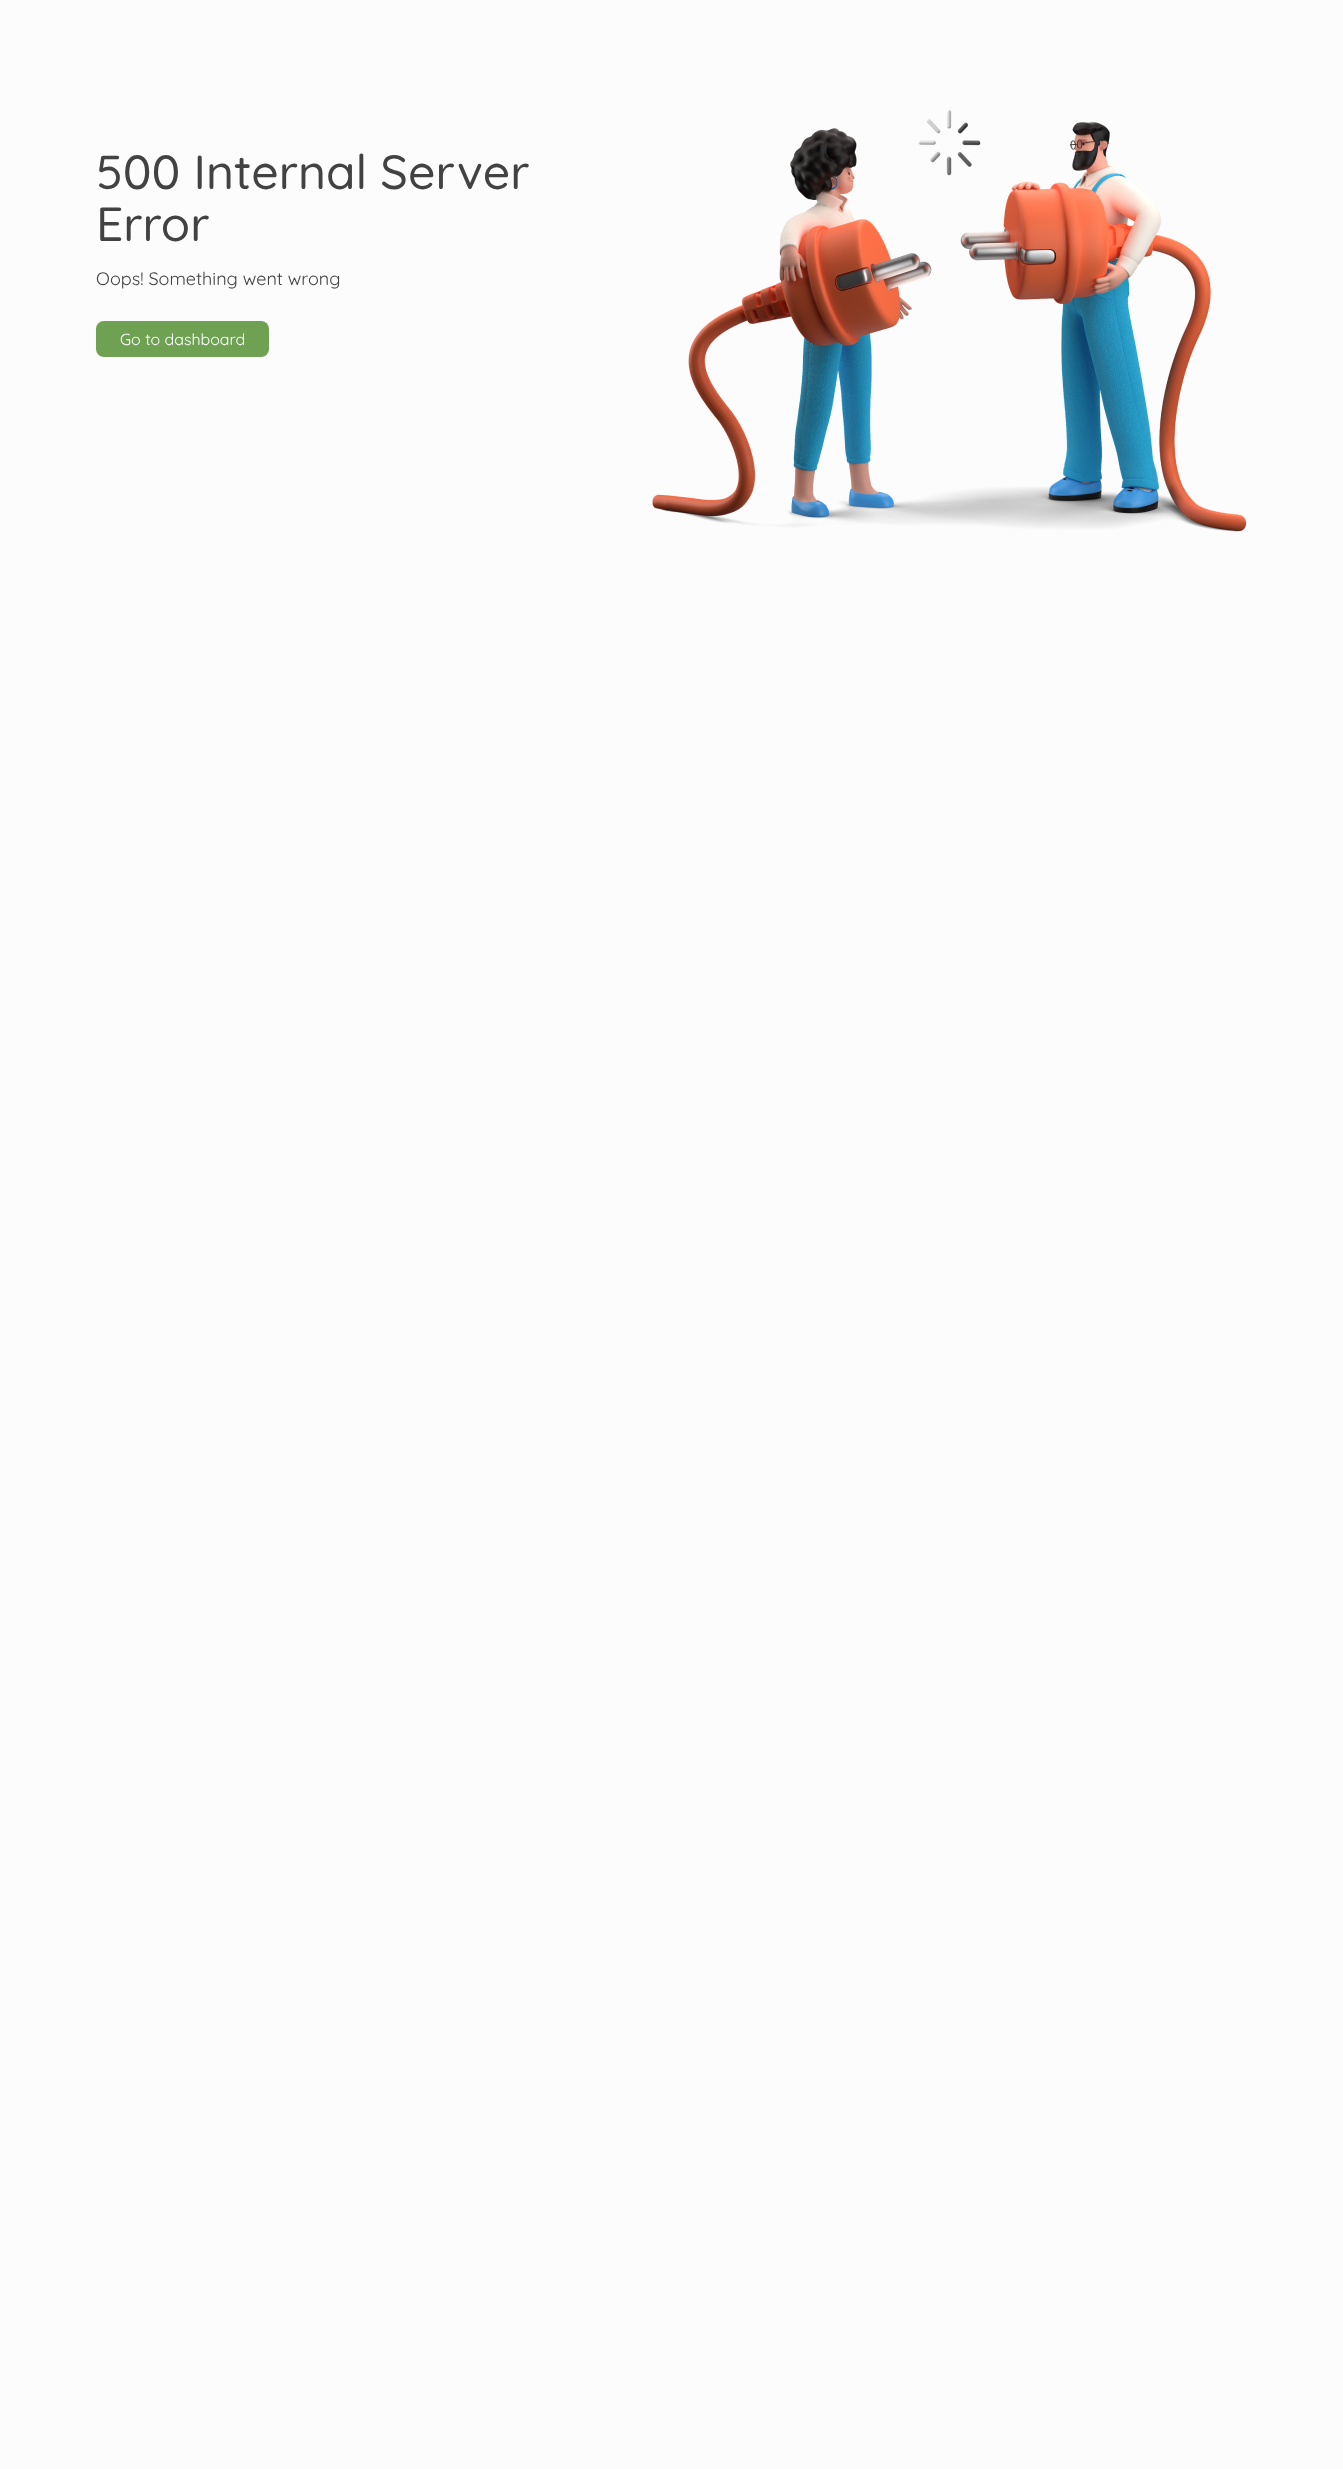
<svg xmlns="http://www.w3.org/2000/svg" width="1343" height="2469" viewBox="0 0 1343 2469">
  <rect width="100%" height="100%" fill="#fcfcfc"/>
  <text x="96" y="189" font-family="Quicksand" font-size="48" font-weight="500" fill="#424242">500 Internal Server</text>
  <text x="96" y="241" font-family="Quicksand" font-size="48" font-weight="500" fill="#424242">Error</text>
  <text x="96" y="285" font-family="Quicksand" font-size="18" fill="#424242">Oops! Something went wrong</text>
  <rect x="96" y="321" width="173" height="36" rx="8" fill="#6ea152"/>
  <text x="120" y="345" font-family="Quicksand" font-size="16" fill="#ffffff">Go to dashboard</text>
  <image x="652" y="109" width="595" height="423" href="img1.png"/>
</svg>
